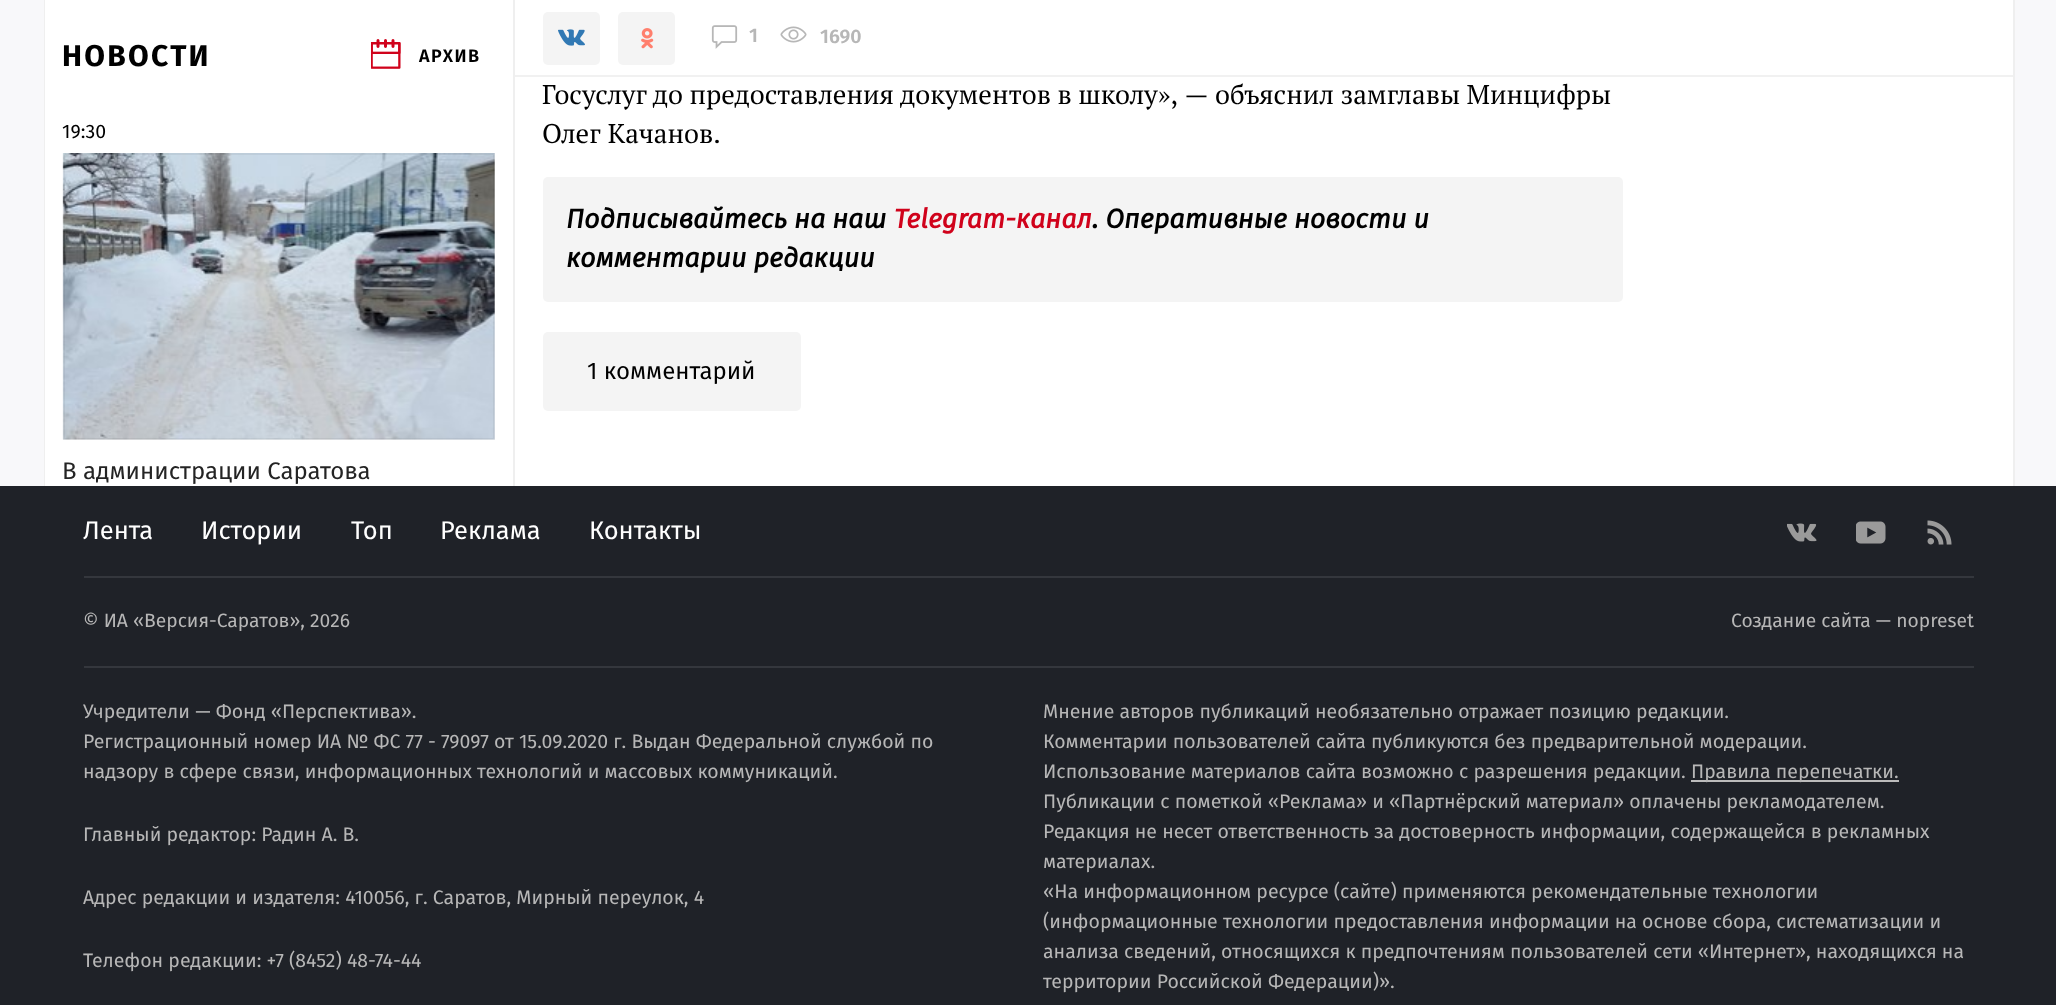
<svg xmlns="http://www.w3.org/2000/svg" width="2056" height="1005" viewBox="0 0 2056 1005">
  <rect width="100%" height="100%" fill="#f8f8fa"/>
  <rect x="2013" y="0" width="2" height="486" fill="#efefef"/>
  <rect x="45" y="0" width="1968" height="486" fill="#ffffff"/>
  <rect x="44" y="0" width="1" height="486" fill="#efefef"/>
  <rect x="513" y="0" width="2" height="486" fill="#efefef"/>
  <text x="62" y="66" font-family="Fira Sans" font-size="30" font-weight="bold" letter-spacing="2.25" fill="#000000">НОВОСТИ</text>
  <image x="371" y="39" width="30" height="30" href="img1.png"/>
  <text x="419" y="62" font-family="Fira Sans" font-size="18" font-weight="600" letter-spacing="1.5" fill="#000000">АРХИВ</text>
  <text x="62" y="138" font-family="Fira Sans" font-size="19.5" fill="#000000">19:30</text>
  <image x="62" y="153" width="433" height="287" href="img2.png"/>
  <rect x="64" y="154" width="430" height="285" fill="none" stroke="#000000" stroke-opacity="0.05" stroke-width="2"/>
  <text x="62" y="479" font-family="Fira Sans" font-size="24" fill="#242424">В администрации Саратова</text>
  <rect x="543" y="12" width="57" height="53" rx="5" fill="#f4f4f4"/>
  <image x="558" y="29" width="27" height="17" href="img3.png"/>
  <rect x="618" y="12" width="57" height="53" rx="5" fill="#f4f4f4"/>
  <image x="641" y="28" width="13" height="21" href="img4.png"/>
  <image x="711" y="25" width="27" height="24" href="img5.png"/>
  <text x="749" y="42" font-family="Fira Sans" font-size="19.5" font-weight="600" fill="#b7b7b7">1</text>
  <image x="780" y="26" width="27" height="17" href="img6.png"/>
  <text x="820" y="43" font-family="Fira Sans" font-size="19.5" font-weight="600" fill="#b7b7b7">1690</text>
  <rect x="515" y="75" width="1498" height="2" fill="#f1f1f1"/>
  <text x="542" y="104" font-family="PT Serif" font-size="27" fill="#000000">Госуслуг до предоставления документов в школу», — объяснил замглавы Минцифры</text>
  <text x="542" y="143" word-spacing="1" font-family="PT Serif" font-size="27" fill="#000000">Олег Качанов.</text>
  <rect x="543" y="177" width="1080" height="125" rx="5" fill="#f4f4f4"/>
  <text x="566" y="228" font-family="Fira Sans" font-size="27" font-weight="bold" font-style="italic" fill="#000000">Подписывайтесь на наш</text>
  <text x="894" y="228" font-family="Fira Sans" font-size="27" font-weight="bold" font-style="italic" fill="#d0021b">Telegram-канал</text>
  <text x="1092" y="228" font-family="Fira Sans" font-size="27" font-weight="bold" font-style="italic" fill="#000000">. Оперативные новости и</text>
  <text x="566" y="267" font-family="Fira Sans" font-size="27" font-weight="bold" font-style="italic" fill="#000000">комментарии редакции</text>
  <rect x="543" y="332" width="258" height="79" rx="5" fill="#f4f4f4"/>
  <text x="587" y="379" font-family="Fira Sans" font-size="24" fill="#000000">1 комментарий</text>
  <rect x="0" y="486" width="2056" height="519" fill="#1f2228"/>
  <text x="83" y="539" font-family="Fira Sans" font-size="25.5" fill="#ffffff">Лента</text>
  <text x="201" y="539" font-family="Fira Sans" font-size="25.5" fill="#ffffff">Истории</text>
  <text x="351" y="539" font-family="Fira Sans" font-size="25.5" fill="#ffffff">Топ</text>
  <text x="440" y="539" font-family="Fira Sans" font-size="25.5" fill="#ffffff">Реклама</text>
  <text x="589" y="539" font-family="Fira Sans" font-size="25.5" fill="#ffffff">Контакты</text>
  <image x="1787" y="523" width="30" height="19" href="img7.png"/>
  <image x="1856" y="521" width="30" height="23" href="img8.png"/>
  <image x="1927" y="520" width="25" height="25" href="img9.png"/>
  <rect x="84" y="576" width="1890" height="2" fill="#34373d"/>
  <rect x="84" y="666" width="1890" height="2" fill="#34373d"/>
  <text x="83" y="627" font-family="Fira Sans" font-size="19.25" fill="#b7b7b7">© ИА «Версия-Саратов», 2026</text>
  <text x="1731" y="627" font-family="Fira Sans" font-size="19.25" fill="#b7b7b7">Создание сайта — nopreset</text>
  <text x="83" y="718" font-family="Fira Sans" font-size="19.5" fill="#b7b7b7">Учредители — Фонд «Перспектива».</text>
  <text x="83" y="748" font-family="Fira Sans" font-size="19.5" fill="#b7b7b7">Регистрационный номер ИА № ФС 77 - 79097 от 15.09.2020 г. Выдан Федеральной службой по</text>
  <text x="83" y="778" font-family="Fira Sans" font-size="19.5" fill="#b7b7b7">надзору в сфере связи, информационных технологий и массовых коммуникаций.</text>
  <text x="83" y="841" font-family="Fira Sans" font-size="19.5" fill="#b7b7b7">Главный редактор: Радин А. В.</text>
  <text x="83" y="904" font-family="Fira Sans" font-size="19.5" fill="#b7b7b7">Адрес редакции и издателя: 410056, г. Саратов, Мирный переулок, 4</text>
  <text x="83" y="967" font-family="Fira Sans" font-size="19.5" fill="#b7b7b7">Телефон редакции: +7 (8452) 48-74-44</text>
  <text x="1043" y="718" font-family="Fira Sans" font-size="19.5" fill="#b7b7b7">Мнение авторов публикаций необязательно отражает позицию редакции.</text>
  <text x="1043" y="748" font-family="Fira Sans" font-size="19.5" fill="#b7b7b7">Комментарии пользователей сайта публикуются без предварительной модерации.</text>
  <text x="1043" y="778" font-family="Fira Sans" font-size="19.5" fill="#b7b7b7">Использование материалов сайта возможно с разрешения редакции.</text>
  <rect x="1691" y="780" width="208" height="2" fill="#bcbcbc"/>
  <text x="1691" y="778" font-family="Fira Sans" font-size="19.5" fill="#b7b7b7">Правила перепечатки.</text>
  <text x="1043" y="808" font-family="Fira Sans" font-size="19.5" fill="#b7b7b7">Публикации с пометкой «Реклама» и «Партнёрский материал» оплачены рекламодателем.</text>
  <text x="1043" y="838" font-family="Fira Sans" font-size="19.5" fill="#b7b7b7">Редакция не несет ответственность за достоверность информации, содержащейся в рекламных</text>
  <text x="1043" y="868" font-family="Fira Sans" font-size="19.5" fill="#b7b7b7">материалах.</text>
  <text x="1043" y="898" font-family="Fira Sans" font-size="19.5" fill="#b7b7b7">«На информационном ресурсе (сайте) применяются рекомендательные технологии</text>
  <text x="1043" y="928" font-family="Fira Sans" font-size="19.5" fill="#b7b7b7">(информационные технологии предоставления информации на основе сбора, систематизации и</text>
  <text x="1043" y="958" font-family="Fira Sans" font-size="19.5" fill="#b7b7b7">анализа сведений, относящихся к предпочтениям пользователей сети «Интернет», находящихся на</text>
  <text x="1043" y="988" font-family="Fira Sans" font-size="19.5" fill="#b7b7b7">территории Российской Федерации)».</text>
</svg>
